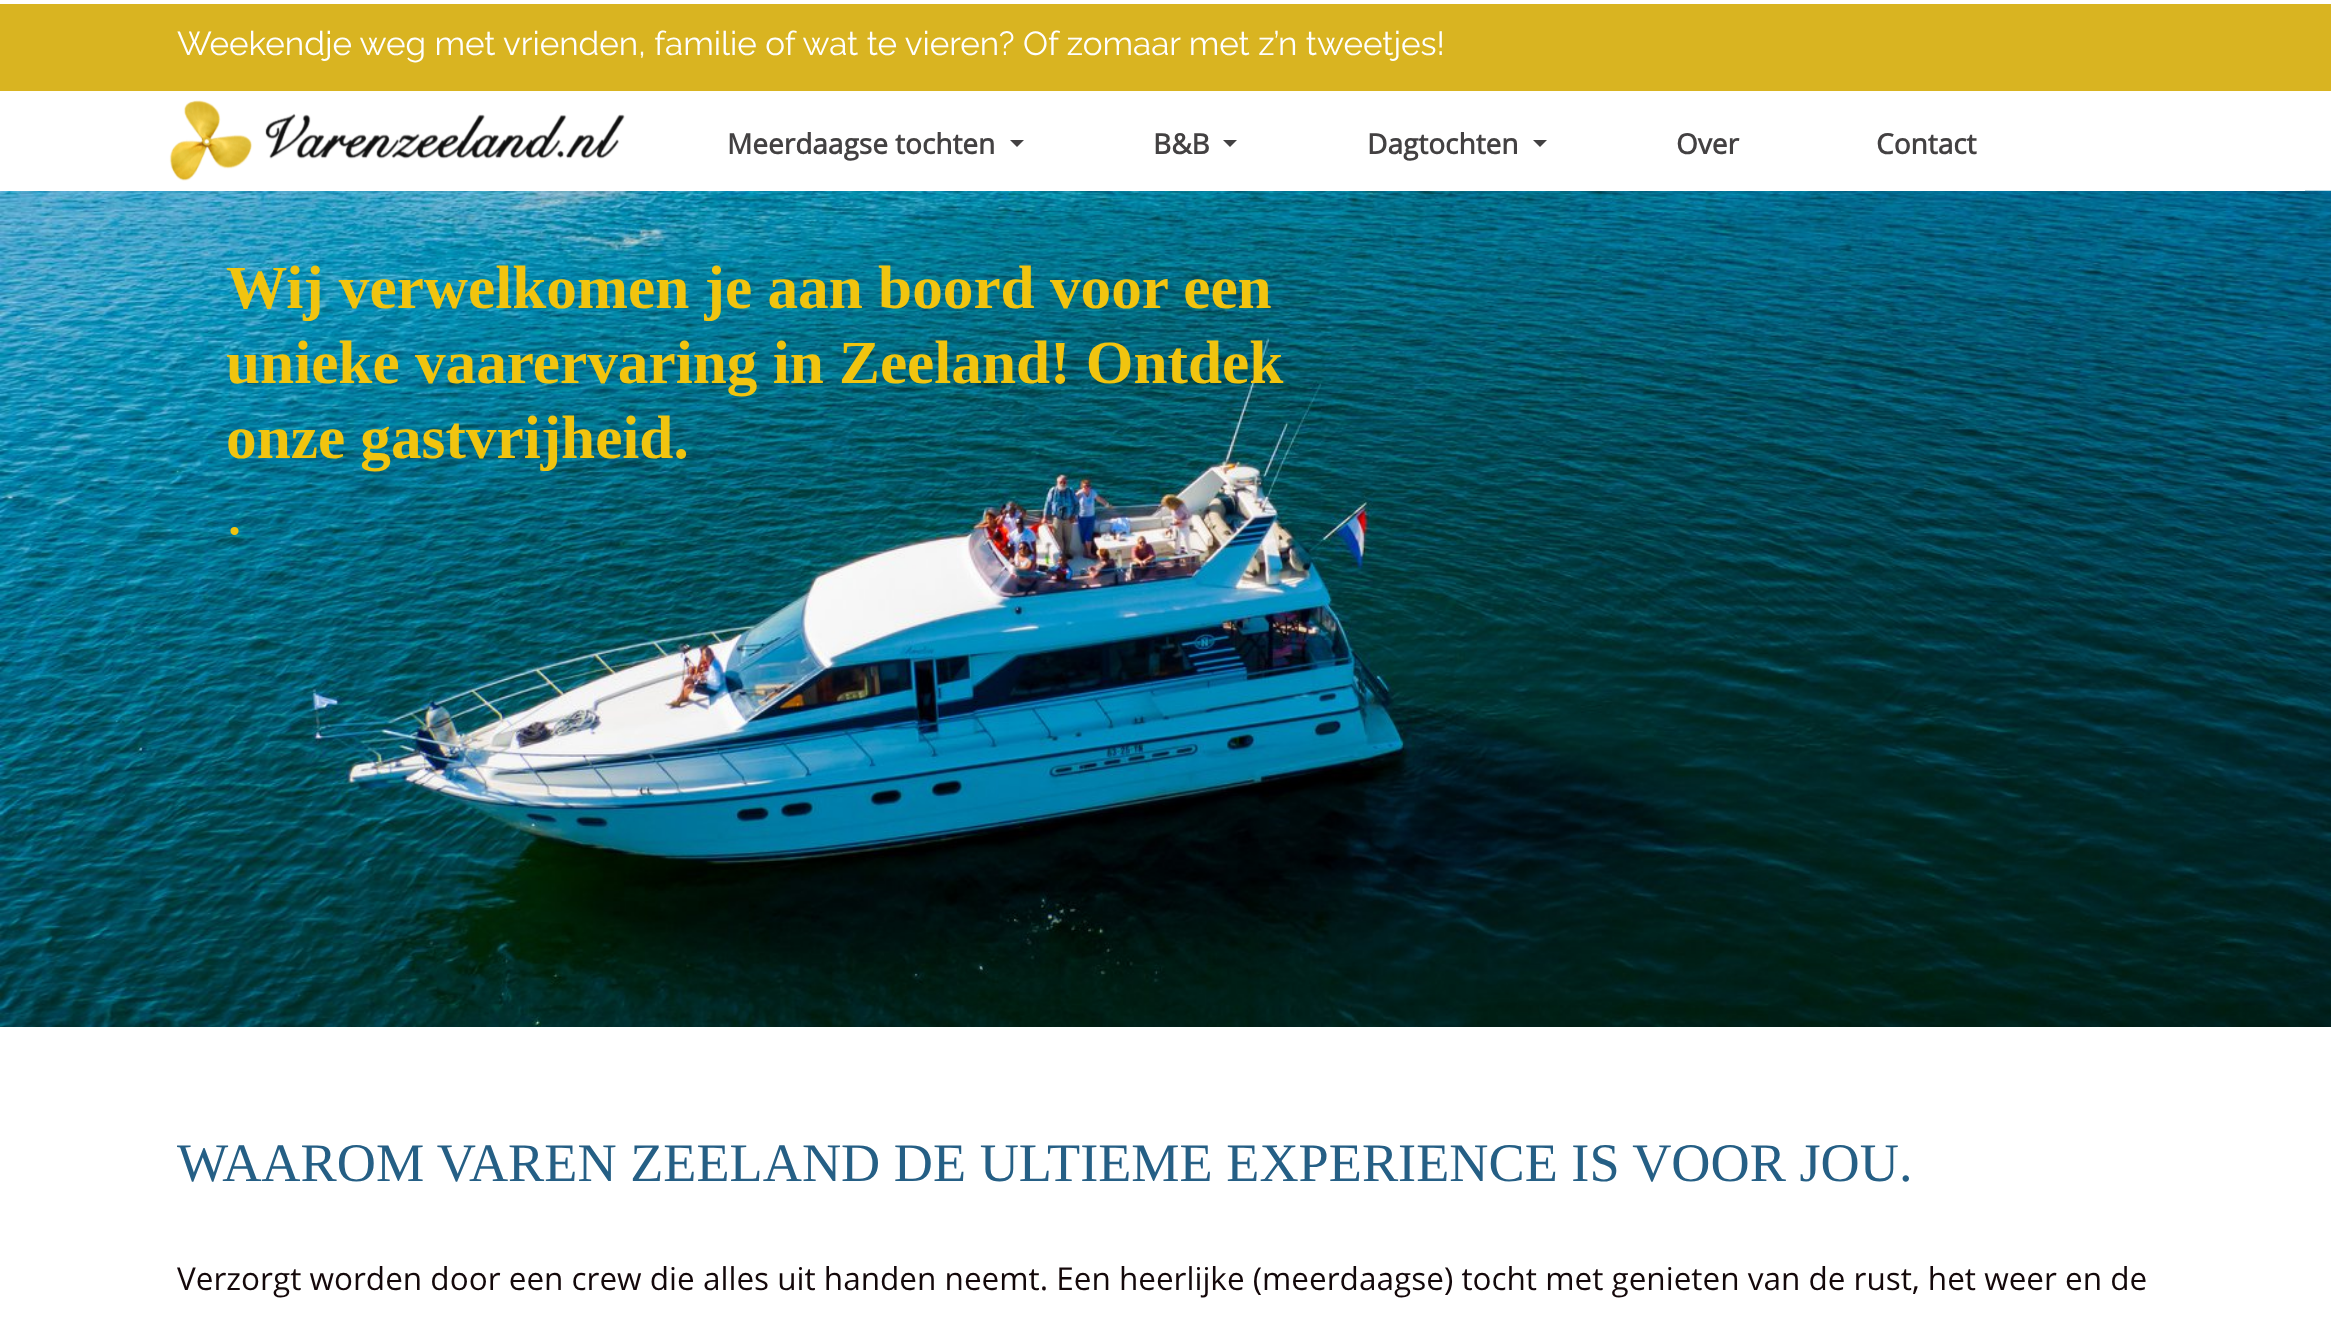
<svg xmlns="http://www.w3.org/2000/svg" width="2331" height="1324" viewBox="0 0 2331 1324">
  <rect width="100%" height="100%" fill="#ffffff"/>
  <image x="0" y="190" width="2331" height="837" href="img2.png"/>
  <rect x="0" y="190" width="2305" height="1" fill="#ffffff"/>
  <rect x="0" y="4" width="2331" height="87" fill="#d9b421"/>
  <text x="177" y="55" font-family="Raleway" font-size="33.25" fill="#ffffff">Weekendje weg met vrienden, familie of wat te vieren? Of zomaar met z’n tweetjes!</text>
  <image x="169" y="100" width="456" height="81" href="img1.png"/>
  <text x="727" y="154" font-family="Open Sans" font-size="28" font-weight="bold" fill="#434142">Meerdaagse tochten</text>
  <path d="M1010 140H1024L1017 147Z" fill="#434142"/>
  <text x="1153" y="154" font-family="Open Sans" font-size="28" font-weight="bold" fill="#434142">B&amp;B</text>
  <path d="M1223 140H1237L1230 147Z" fill="#434142"/>
  <text x="1367" y="154" font-family="Open Sans" font-size="28" font-weight="bold" fill="#434142">Dagtochten</text>
  <path d="M1533 140H1547L1540 147Z" fill="#434142"/>
  <text x="1676" y="154" font-family="Open Sans" font-size="28" font-weight="bold" fill="#434142">Over</text>
  <text x="1876" y="154" font-family="Open Sans" font-size="28" font-weight="bold" fill="#434142">Contact</text>
  <text x="226" y="308" font-family="Liberation Serif" font-size="61.25" font-weight="bold" fill="#f1c40f">Wij verwelkomen je aan boord voor een</text>
  <text x="226" y="383" font-family="Liberation Serif" font-size="61.25" font-weight="bold" fill="#f1c40f">unieke vaarervaring in Zeeland! Ontdek</text>
  <text x="226" y="458" font-family="Liberation Serif" font-size="61.25" font-weight="bold" fill="#f1c40f">onze gastvrijheid.</text>
  <text x="226" y="534" font-family="Liberation Serif" font-size="68" fill="#f1c40f">.</text>
  <text x="177" y="1181" font-family="Liberation Serif" font-size="54.25" fill="#255f85">WAAROM VAREN ZEELAND DE ULTIEME EXPERIENCE IS VOOR JOU.</text>
  <text x="177" y="1290" font-family="Open Sans" font-size="31.5" fill="#14080a">Verzorgt worden door een crew die alles uit handen neemt. Een heerlijke (meerdaagse) tocht met genieten van de rust, het weer en de</text>
</svg>
